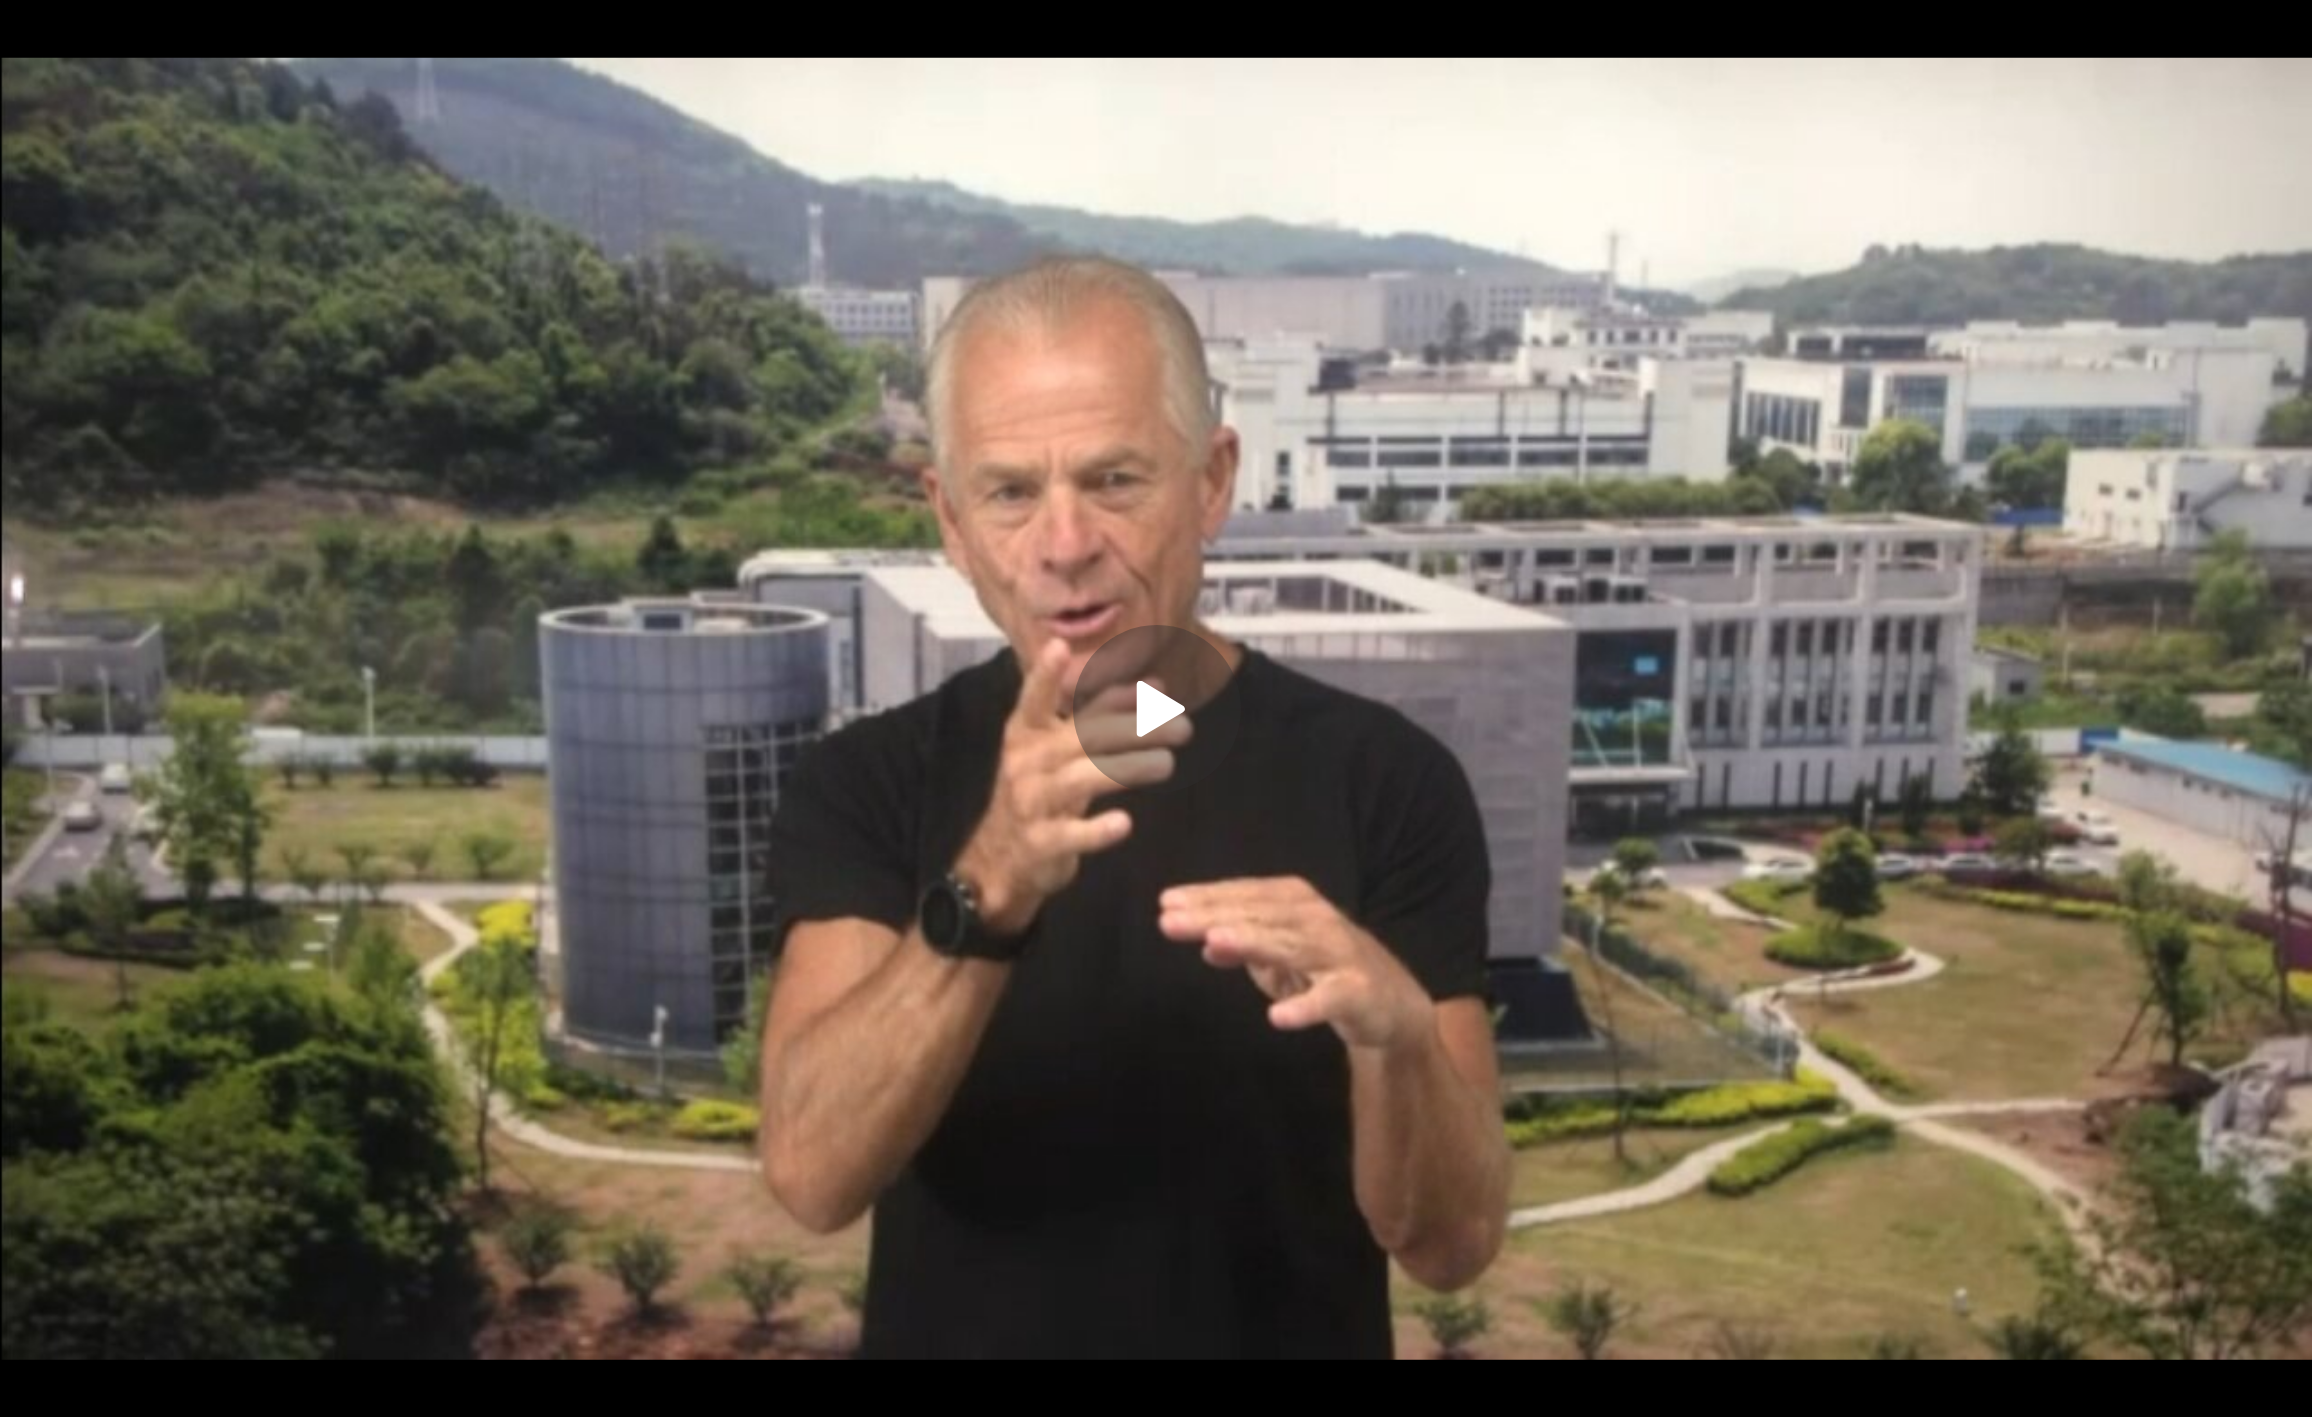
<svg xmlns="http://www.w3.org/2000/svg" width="2312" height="1417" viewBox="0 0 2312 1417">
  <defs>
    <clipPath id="clip1"><rect x="1129" y="681" width="56" height="56"/></clipPath>
  </defs>
  <rect width="100%" height="100%" fill="#000000"/>
  <image x="0" y="57" width="2312" height="1303" href="img1.png"/>
  <circle cx="1157" cy="709" r="84" fill="#303030" fill-opacity="0.4"/>
  <path d="M1181 709L1141 685V733Z" fill="#ffffff"/>
  <g clip-path="url(#clip1)">
    <path d="M1181 709L1140.5 684.5V733Z" fill="none" stroke="#ffffff" stroke-width="7.6" stroke-linejoin="round"/>
  </g>
</svg>
